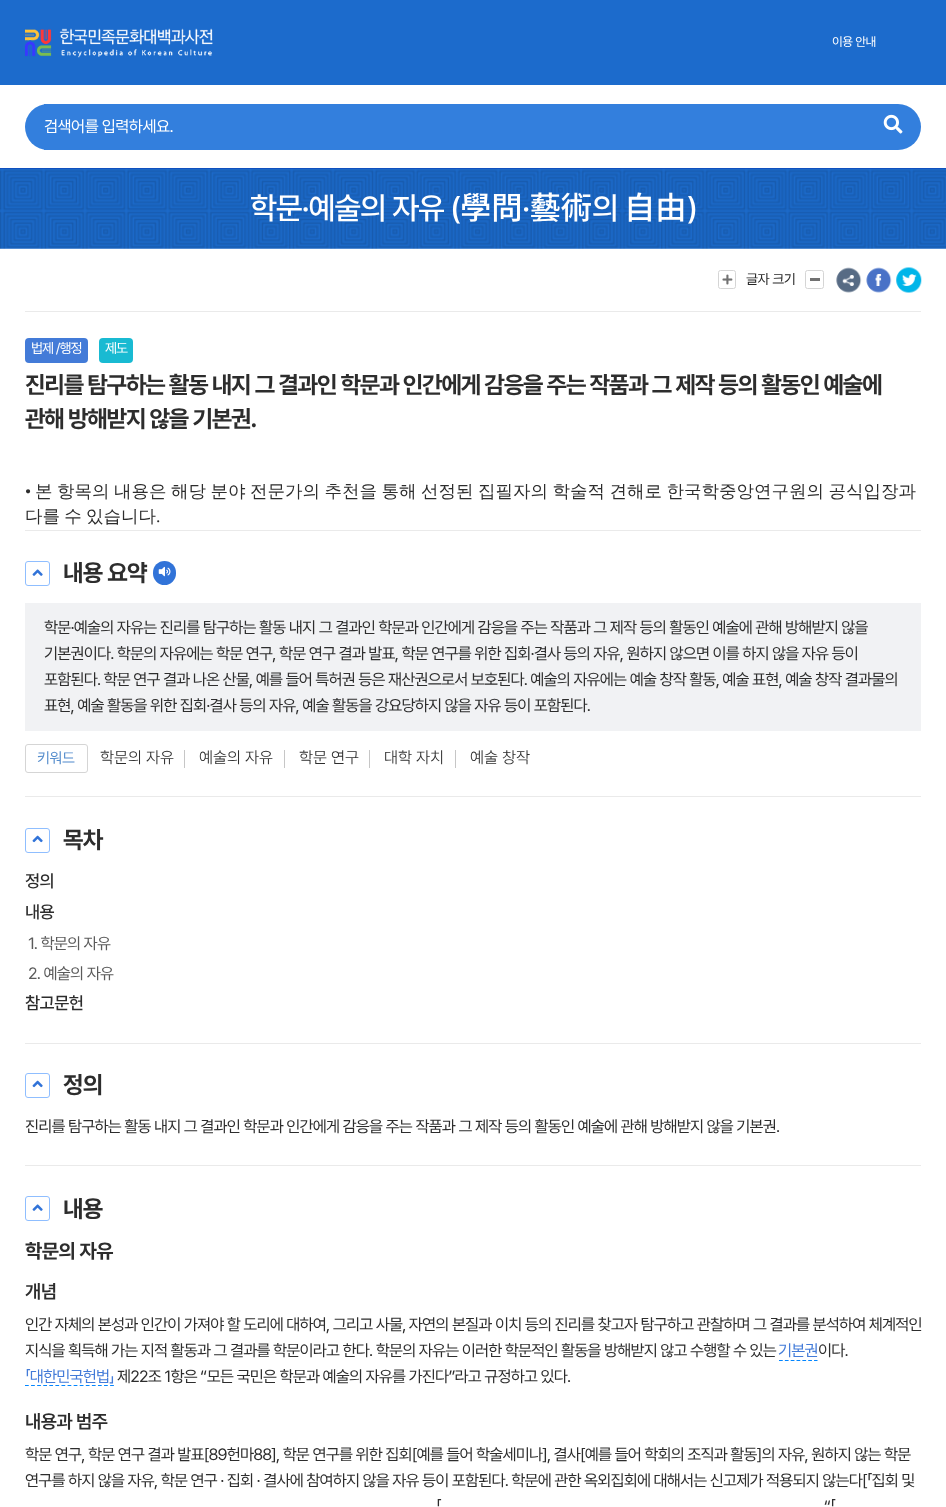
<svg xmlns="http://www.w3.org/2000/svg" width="946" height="1507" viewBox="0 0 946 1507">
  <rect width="100%" height="100%" fill="#ffffff"/>
  <rect x="0" y="0" width="946" height="85" fill="#1c6bcc"/>
  <text x="832" y="46" font-family="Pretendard" font-size="12.5" letter-spacing="-0.5" fill="#ffffff">이용 안내</text>
  <image x="25" y="28" width="188" height="30" href="img1.png"/>
  <rect x="0" y="168" width="946" height="1" fill="#0d48be"/>
  <rect x="25" y="104" width="896" height="46" rx="23" fill="#337fdd"/>
  <rect x="44" y="104" width="4" height="46" fill="#337fdd"/>
  <text x="44" y="132" font-family="Pretendard" font-size="16.25" letter-spacing="-0.5" fill="#ffffff">검색어를 입력하세요.</text>
  <image x="883" y="114" width="20" height="20" href="img2.png"/>
  <image x="0" y="168" width="946" height="81" href="img3.png"/>
  <text x="250" y="219" font-family="Pretendard" font-size="31.25" font-weight="500" letter-spacing="-1.25" fill="#ffffff">학문·예술의 자유 (</text>
  <text x="460" y="219" font-family="Noto Sans CJK KR" font-size="31.25" font-weight="500" fill="#ffffff">學問 藝術</text>
  <text x="592" y="219" font-family="Pretendard" font-size="31.25" font-weight="500" letter-spacing="-1.25" fill="#ffffff">의</text>
  <text x="624" y="219" font-family="Noto Sans CJK KR" font-size="31.25" font-weight="500" fill="#ffffff">自由</text>
  <text x="687" y="219" font-family="Pretendard" font-size="31.25" font-weight="500" letter-spacing="-1.25" fill="#ffffff">)</text>
  <text x="522" y="219" font-family="Pretendard" font-size="31.25" font-weight="500" letter-spacing="-1.25" fill="#ffffff">·</text>
  <rect x="25" y="311" width="896" height="1" fill="#eaeaea"/>
  <rect x="718.5" y="270.5" width="17" height="18" rx="2" fill="none" stroke="#d5d5d5"/>
  <image x="722" y="274" width="11" height="11" href="img4.png"/>
  <text x="746" y="284" font-family="Pretendard" font-size="14" letter-spacing="-0.5" fill="#262626">글자 크기</text>
  <rect x="805.5" y="270.5" width="18" height="18" rx="2" fill="none" stroke="#d5d5d5"/>
  <rect x="810" y="278" width="10" height="3" fill="#717171"/>
  <image x="836" y="267" width="26" height="26" href="img5.png"/>
  <image x="866" y="267" width="26" height="26" href="img6.png"/>
  <image x="896" y="267" width="26" height="26" href="img7.png"/>
  <rect x="25" y="338" width="63" height="25" rx="4" fill="#437bd8"/>
  <text x="31" y="353" font-family="Pretendard" font-size="14" letter-spacing="-1" fill="#ffffff">법제 /행정</text>
  <rect x="99" y="338" width="34" height="25" rx="4" fill="#19bad2"/>
  <text x="105" y="353" font-family="Pretendard" font-size="14" letter-spacing="-1" fill="#ffffff">제도</text>
  <text x="25" y="393" font-family="Pretendard" font-size="23.75" font-weight="bold" letter-spacing="-1.2" fill="#2d2d2d">진리를 탐구하는 활동 내지 그 결과인 학문과 인간에게 감응을 주는 작품과 그 제작 등의 활동인 예술에</text>
  <text x="25" y="427" font-family="Pretendard" font-size="23.75" font-weight="bold" letter-spacing="-1.2" fill="#2d2d2d">관해 방해받지 않을 기본권.</text>
  <text x="25" y="497" font-family="Liberation Serif" font-size="17.5" fill="#2d2d2d">•</text>
  <text x="35" y="497" word-spacing="-0.75" font-family="WenQuanYi Zen Hei" font-size="17.5" font-weight="500" fill="#2d2d2d">본 항목의 내용은 해당 분야 전문가의 추천을 통해 선정된 집필자의 학술적 견해로 한국학중앙연구원의 공식입장과</text>
  <text x="25" y="522" word-spacing="-1" font-family="WenQuanYi Zen Hei" font-size="17.5" font-weight="500" fill="#2d2d2d">다를 수 있습니다</text>
  <text x="156" y="522" font-family="Liberation Serif" font-size="17.5" fill="#2d2d2d">.</text>
  <rect x="25" y="530" width="896" height="1" fill="#eaeaea"/>
  <rect x="25.5" y="561.5" width="24" height="24" rx="2.5" fill="none" stroke="#8fbeff"/>
  <image x="32" y="569" width="11" height="7" href="img8.png"/>
  <text x="63" y="581" font-family="Pretendard" font-size="23.75" font-weight="bold" letter-spacing="-0.75" fill="#2d2d2d">내용 요약</text>
  <rect x="153" y="561" width="23" height="24" rx="11.5" fill="#3173d8"/>
  <image x="158" y="566" width="13" height="11" href="img9.png"/>
  <rect x="25" y="603" width="896" height="128" fill="#f1f2f4"/>
  <text x="44" y="633" font-family="Pretendard" font-size="16.25" letter-spacing="-0.8" fill="#2d2d2d">학문·예술의 자유는 진리를 탐구하는 활동 내지 그 결과인 학문과 인간에게 감응을 주는 작품과 그 제작 등의 활동인 예술에 관해 방해받지 않을</text>
  <text x="44" y="659" font-family="Pretendard" font-size="16.25" letter-spacing="-0.8" fill="#2d2d2d">기본권이다. 학문의 자유에는 학문 연구, 학문 연구 결과 발표, 학문 연구를 위한 집회·결사 등의 자유, 원하지 않으면 이를 하지 않을 자유 등이</text>
  <text x="44" y="685" font-family="Pretendard" font-size="16.25" letter-spacing="-0.8" fill="#2d2d2d">포함된다. 학문 연구 결과 나온 산물, 예를 들어 특허권 등은 재산권으로서 보호된다. 예술의 자유에는 예술 창작 활동, 예술 표현, 예술 창작 결과물의</text>
  <text x="44" y="711" font-family="Pretendard" font-size="16.25" letter-spacing="-0.8" fill="#2d2d2d">표현, 예술 활동을 위한 집회·결사 등의 자유, 예술 활동을 강요당하지 않을 자유 등이 포함된다.</text>
  <rect x="25.5" y="744.5" width="62" height="28" rx="2.5" fill="none" stroke="#d5d5d5"/>
  <text x="37" y="763" font-family="Pretendard" font-size="15" letter-spacing="-0.5" fill="#578ecd">키워드</text>
  <text x="100" y="763" font-family="Pretendard" font-size="16.25" font-weight="300" fill="#2d2d2d">학문의 자유</text>
  <rect x="184" y="750" width="1" height="18" fill="#c6c6c6"/>
  <text x="199" y="763" font-family="Pretendard" font-size="16.25" font-weight="300" fill="#2d2d2d">예술의 자유</text>
  <rect x="284" y="750" width="1" height="18" fill="#c6c6c6"/>
  <text x="299" y="763" font-family="Pretendard" font-size="16.25" font-weight="300" fill="#2d2d2d">학문 연구</text>
  <rect x="369" y="750" width="1" height="18" fill="#c6c6c6"/>
  <text x="384" y="763" font-family="Pretendard" font-size="16.25" font-weight="300" fill="#2d2d2d">대학 자치</text>
  <rect x="455" y="750" width="1" height="18" fill="#c6c6c6"/>
  <text x="470" y="763" font-family="Pretendard" font-size="16.25" font-weight="300" fill="#2d2d2d">예술 창작</text>
  <rect x="25" y="796" width="896" height="1" fill="#eaeaea"/>
  <rect x="25.5" y="828.5" width="24" height="24" rx="2.5" fill="none" stroke="#8fbeff"/>
  <image x="32" y="835" width="11" height="8" href="img10.png"/>
  <text x="63" y="848" font-family="Pretendard" font-size="23.75" font-weight="bold" letter-spacing="-0.75" fill="#2d2d2d">목차</text>
  <text x="25" y="887" font-family="Pretendard" font-size="17.5" font-weight="500" letter-spacing="-0.5" fill="#2d2d2d">정의</text>
  <text x="25" y="918" font-family="Pretendard" font-size="17.5" font-weight="500" letter-spacing="-0.5" fill="#2d2d2d">내용</text>
  <text x="28" y="949" font-family="Pretendard" font-size="16.25" letter-spacing="-0.75" fill="#5b5b5b">1. 학문의 자유</text>
  <text x="28" y="979" font-family="Pretendard" font-size="16.25" letter-spacing="-0.75" fill="#5b5b5b">2. 예술의 자유</text>
  <text x="25" y="1009" font-family="Pretendard" font-size="17.5" font-weight="500" letter-spacing="-0.5" fill="#2d2d2d">참고문헌</text>
  <rect x="25" y="1043" width="896" height="1" fill="#eaeaea"/>
  <rect x="25.5" y="1073.5" width="24" height="24" rx="2.5" fill="none" stroke="#8fbeff"/>
  <image x="32" y="1080" width="11" height="8" href="img10.png"/>
  <text x="63" y="1093" font-family="Pretendard" font-size="23.75" font-weight="bold" letter-spacing="-0.75" fill="#2d2d2d">정의</text>
  <text x="25" y="1132" font-family="Pretendard" font-size="16.25" letter-spacing="-0.8" fill="#2d2d2d">진리를 탐구하는 활동 내지 그 결과인 학문과 인간에게 감응을 주는 작품과 그 제작 등의 활동인 예술에 관해 방해받지 않을 기본권.</text>
  <rect x="25" y="1165" width="896" height="1" fill="#eaeaea"/>
  <rect x="25.5" y="1196.5" width="24" height="24" rx="2.5" fill="none" stroke="#8fbeff"/>
  <image x="32" y="1204" width="11" height="7" href="img8.png"/>
  <text x="63" y="1217" font-family="Pretendard" font-size="23.75" font-weight="bold" letter-spacing="-0.75" fill="#2d2d2d">내용</text>
  <text x="25" y="1258" font-family="Pretendard" font-size="20" font-weight="bold" letter-spacing="-0.5" fill="#2d2d2d">학문의 자유</text>
  <text x="25" y="1298" font-family="Pretendard" font-size="18.75" font-weight="600" letter-spacing="-0.5" fill="#2d2d2d">개념</text>
  <text x="25" y="1330" font-family="Pretendard" font-size="16.25" letter-spacing="-0.8" fill="#2d2d2d">인간 자체의 본성과 인간이 가져야 할 도리에 대하여, 그리고 사물, 자연의 본질과 이치 등의 진리를 찾고자 탐구하고 관찰하며 그 결과를 분석하여 체계적인</text>
  <text x="25" y="1356" font-family="Pretendard" font-size="16.25" letter-spacing="-0.8" fill="#2d2d2d">지식을 획득해 가는 지적 활동과 그 결과를 학문이라고 한다. 학문의 자유는 이러한 학문적인 활동을 방해받지 않고 수행할 수 있는</text>
  <text x="778" y="1356" font-family="Pretendard" font-size="16.25" letter-spacing="-0.8" fill="#437bd8">기본권</text>
  <path d="M779 1360.5H817.5" fill="none" stroke="#0285ff" stroke-width="1.2" stroke-dasharray="3.75 2.09"/>
  <text x="818" y="1356" font-family="Pretendard" font-size="16.25" letter-spacing="-0.8" fill="#2d2d2d">이다.</text>
  <text x="25" y="1382" font-family="Pretendard" font-size="16.25" letter-spacing="-0.8" fill="#437bd8">「대한민국헌법」</text>
  <path d="M25 1385.5H114" fill="none" stroke="#0285ff" stroke-width="1.2" stroke-dasharray="3.75 2.33"/>
  <text x="117" y="1382" font-family="Pretendard" font-size="16.25" letter-spacing="-0.8" fill="#2d2d2d">제22조 1항은 “모든 국민은 학문과 예술의 자유를 가진다”라고 규정하고 있다.</text>
  <text x="25" y="1428" font-family="Pretendard" font-size="18.75" font-weight="600" letter-spacing="-0.5" fill="#2d2d2d">내용과 범주</text>
  <text x="25" y="1460" font-family="Pretendard" font-size="16.25" letter-spacing="-0.8" fill="#2d2d2d">학문 연구, 학문 연구 결과 발표[89헌마88], 학문 연구를 위한 집회[예를 들어 학술세미나], 결사[예를 들어 학회의 조직과 활동]의 자유, 원하지 않는 학문</text>
  <text x="25" y="1486" font-family="Pretendard" font-size="16.25" letter-spacing="-0.8" fill="#2d2d2d">연구를 하지 않을 자유, 학문 연구 · 집회 · 결사에 참여하지 않을 자유 등이 포함된다. 학문에 관한 옥외집회에 대해서는 신고제가 적용되지 않는다[「집회 및</text>
  <text x="436" y="1512" font-family="Pretendard" font-size="16.25" letter-spacing="-0.8" fill="#2d2d2d">「</text>
  <text x="824" y="1512" font-family="Pretendard" font-size="16.25" letter-spacing="-0.8" fill="#2d2d2d">“「</text>
</svg>
